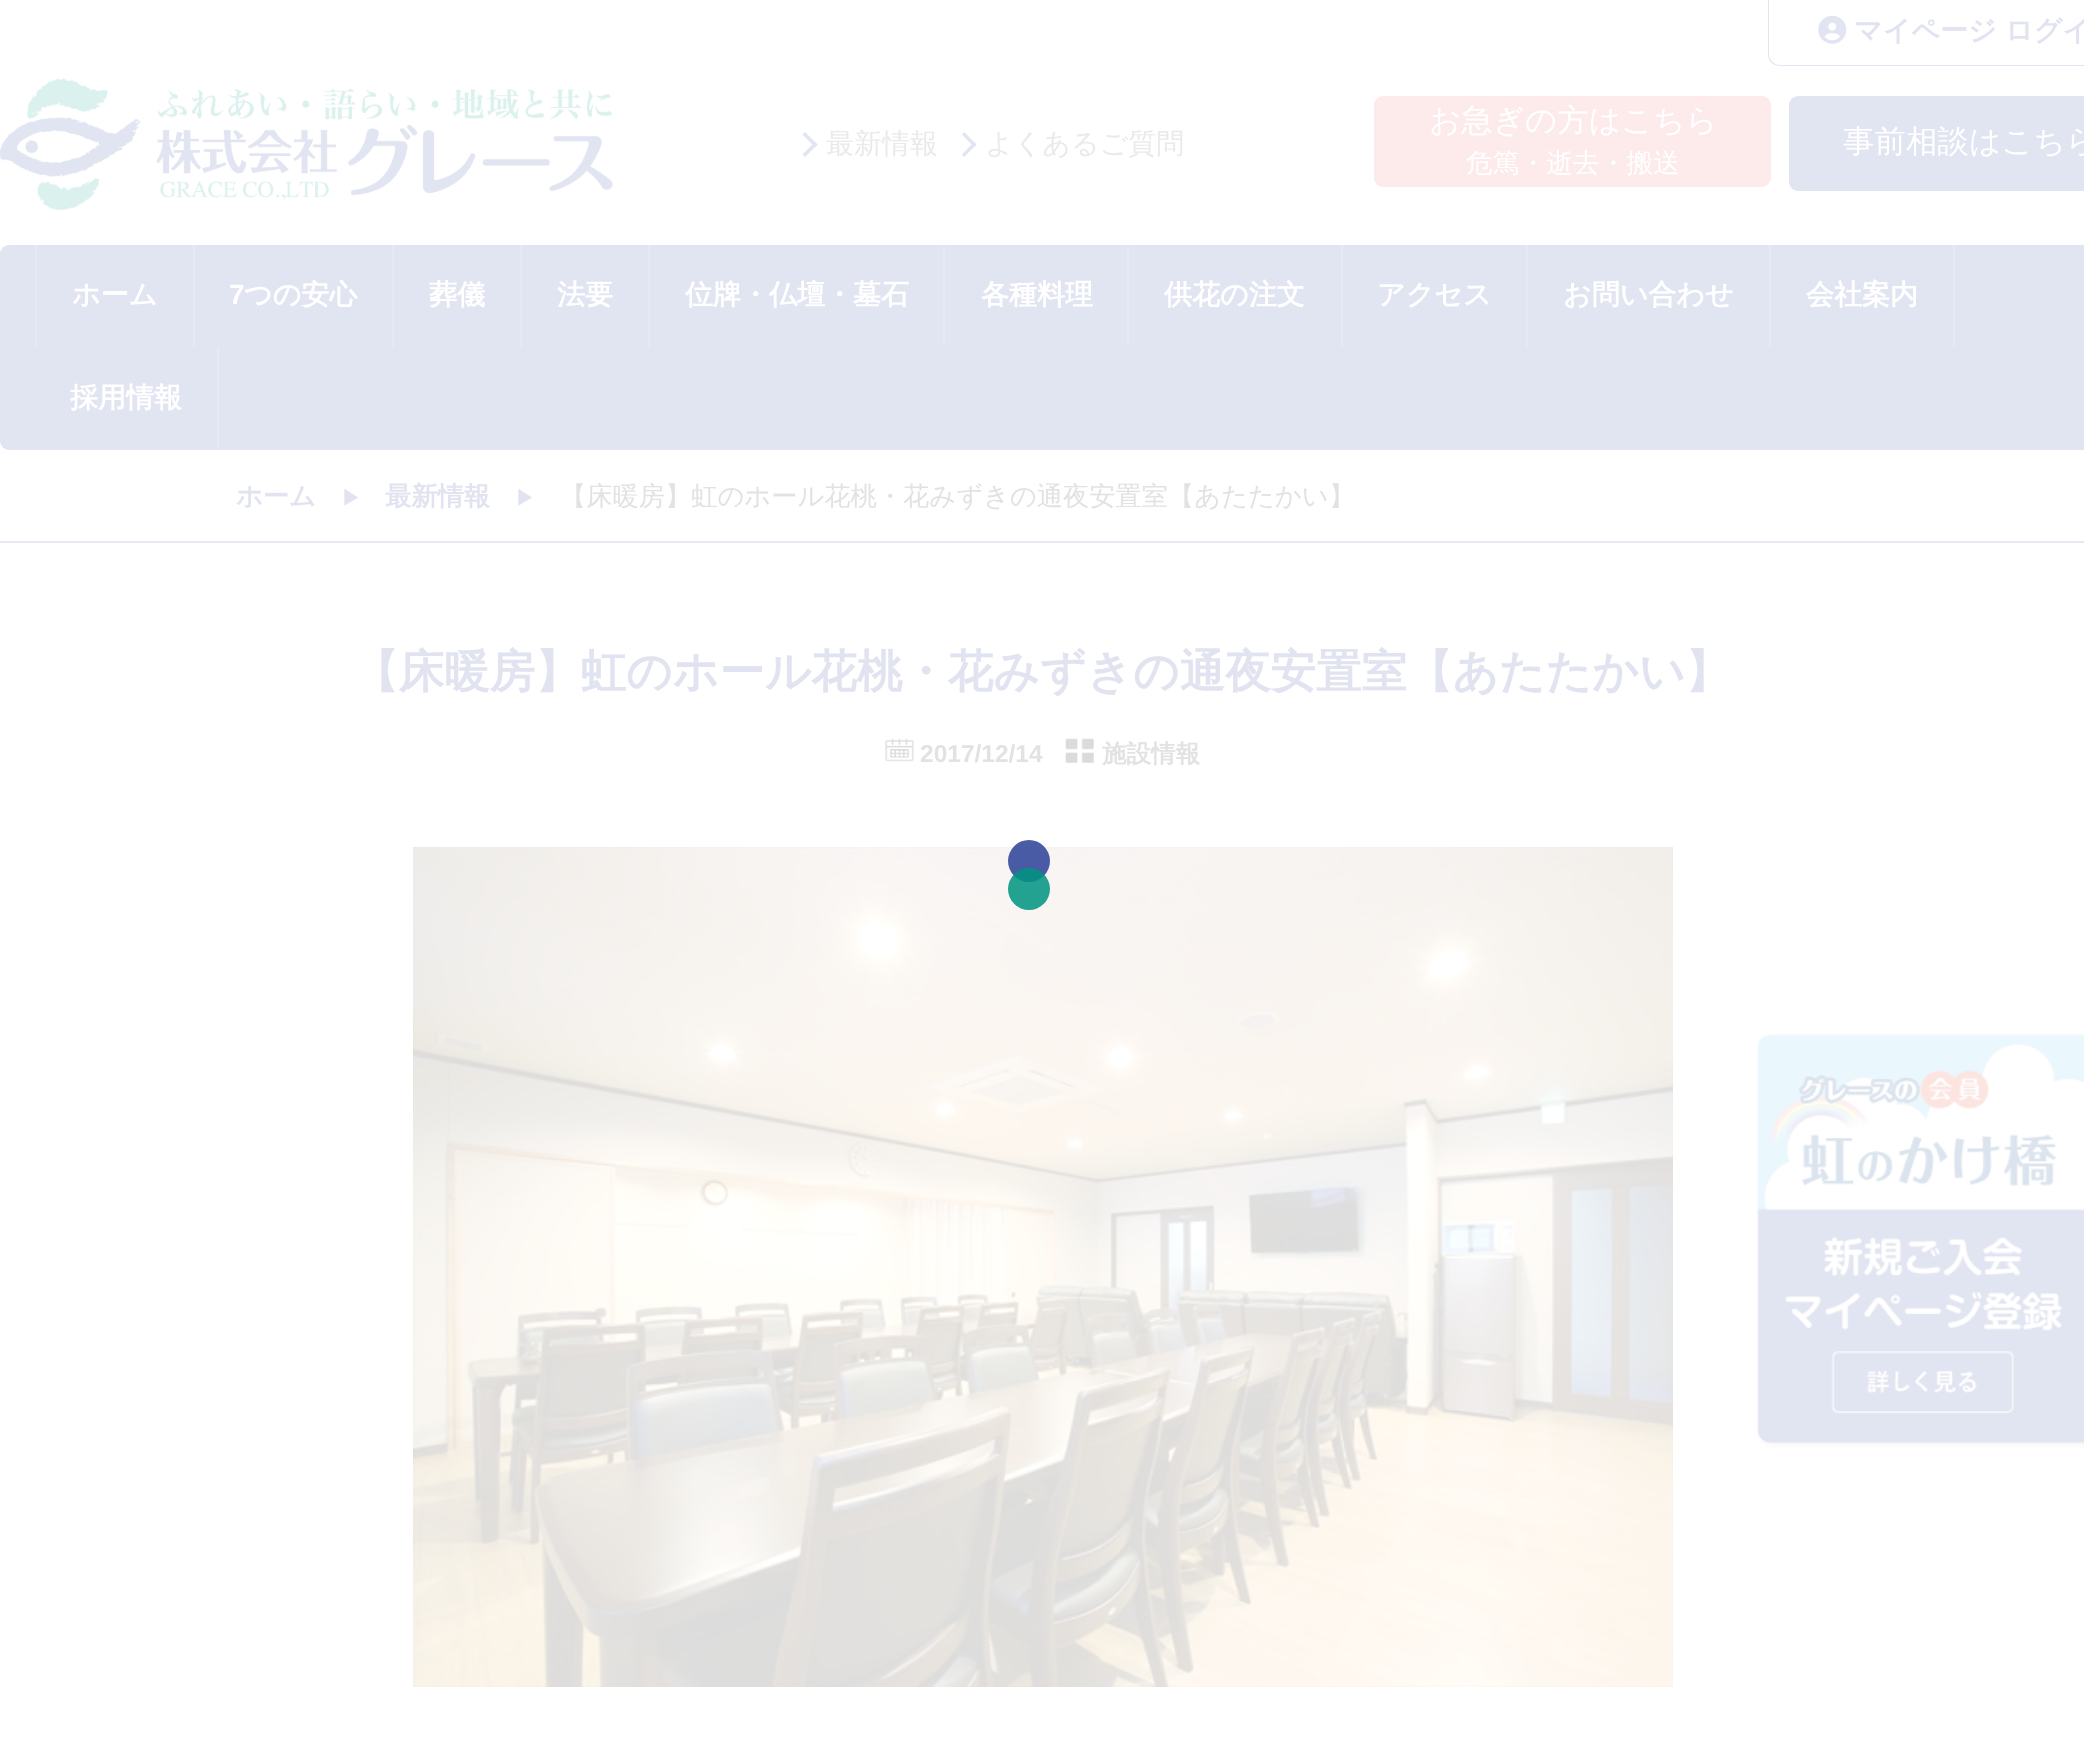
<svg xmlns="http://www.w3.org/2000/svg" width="2084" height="1750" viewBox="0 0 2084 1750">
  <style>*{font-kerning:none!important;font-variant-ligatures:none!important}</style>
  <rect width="100%" height="100%" fill="#ffffff"/>
  <image x="0" y="78" width="613" height="132" href="img1.png"/>
  <path d="M1768 0H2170V54C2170 61 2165 66 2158 66H1780C1773 66 1768 61 1768 54ZM1769 0H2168V54C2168 60 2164 65 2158 65H1780C1774 65 1769 60 1769 54Z" fill="#e1e4f1" fill-rule="evenodd"/>
  <image x="1818" y="15" width="29" height="29" href="img2.png"/>
  <text x="1854" y="40" font-family="WenQuanYi Zen Hei" font-size="28" font-weight="bold" fill="#e1e4f0">マイページ ログイ</text>
  <rect x="1374" y="96" width="397" height="91" rx="9" fill="#fdebec"/>
  <text x="1429" y="131" font-family="WenQuanYi Zen Hei" font-size="31.5" font-weight="500" fill="#ffffff">お急ぎの方はこちら</text>
  <text x="1466" y="172" font-family="WenQuanYi Zen Hei" font-size="26.75" font-weight="500" fill="#ffffff">危篤・逝去・搬送</text>
  <rect x="1789" y="96" width="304" height="95" rx="9" fill="#e1e4f1"/>
  <text x="1843" y="152" font-family="WenQuanYi Zen Hei" font-size="31.5" font-weight="500" fill="#ffffff">事前相談はこちら</text>
  <path d="M802.5 134.5L805 132L817.5 144.5L815 147Z" fill="#e1e4f1"/>
  <path d="M802.5 154.5L815 142L817.5 144.5L805 157Z" fill="#e1e4f1"/>
  <text x="826" y="153" font-family="WenQuanYi Zen Hei" font-size="28" font-weight="500" fill="#eaeaea">最新情報</text>
  <path d="M962 134.5L964 132L976.5 144.5L974 147Z" fill="#e1e4f1"/>
  <path d="M962 154.5L974 142L976.5 144.5L964 157Z" fill="#e1e4f1"/>
  <text x="985" y="153" font-family="WenQuanYi Zen Hei" font-size="28" font-weight="500" fill="#eaeaea">よくあるご質問</text>
  <rect x="0" y="245" width="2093" height="205" rx="9" fill="#e1e4f1"/>
  <rect x="193" y="245" width="2" height="102" fill="#e6e9f4"/>
  <rect x="35" y="245" width="2" height="102" fill="#e6e9f4"/>
  <text x="72" y="304" font-family="WenQuanYi Zen Hei" font-size="28" font-weight="bold" fill="#ffffff">ホーム</text>
  <rect x="392" y="245" width="2" height="102" fill="#e6e9f4"/>
  <text x="229" y="304" font-family="Liberation Sans" font-size="28" font-weight="bold" fill="#ffffff">7</text>
  <text x="244" y="304" font-family="WenQuanYi Zen Hei" font-size="28" font-weight="bold" fill="#ffffff">つの安心</text>
  <rect x="520" y="245" width="2" height="102" fill="#e6e9f4"/>
  <text x="429" y="304" font-family="WenQuanYi Zen Hei" font-size="28" font-weight="bold" fill="#ffffff">葬儀</text>
  <rect x="648" y="245" width="2" height="102" fill="#e6e9f4"/>
  <text x="557" y="304" font-family="WenQuanYi Zen Hei" font-size="28" font-weight="bold" fill="#ffffff">法要</text>
  <rect x="943" y="245" width="2" height="102" fill="#e6e9f4"/>
  <text x="685" y="304" font-family="WenQuanYi Zen Hei" font-size="28" font-weight="bold" fill="#ffffff">位牌・仏壇・墓石</text>
  <rect x="1127" y="245" width="2" height="102" fill="#e6e9f4"/>
  <text x="981" y="304" font-family="WenQuanYi Zen Hei" font-size="28" font-weight="bold" fill="#ffffff">各種料理</text>
  <rect x="1341" y="245" width="2" height="102" fill="#e6e9f4"/>
  <text x="1164" y="304" font-family="WenQuanYi Zen Hei" font-size="28" font-weight="bold" fill="#ffffff">供花の注文</text>
  <rect x="1526" y="245" width="2" height="102" fill="#e6e9f4"/>
  <text x="1377" y="304" font-family="WenQuanYi Zen Hei" font-size="28" font-weight="bold" fill="#ffffff">アクセス</text>
  <rect x="1769" y="245" width="2" height="102" fill="#e6e9f4"/>
  <text x="1563" y="304" font-family="WenQuanYi Zen Hei" font-size="28" font-weight="bold" fill="#ffffff">お問い合わせ</text>
  <rect x="1953" y="245" width="2" height="102" fill="#e6e9f4"/>
  <text x="1806" y="304" font-family="WenQuanYi Zen Hei" font-size="28" font-weight="bold" fill="#ffffff">会社案内</text>
  <rect x="217" y="347" width="2" height="103" fill="#e6e9f4"/>
  <text x="70" y="407" font-family="WenQuanYi Zen Hei" font-size="28" font-weight="bold" fill="#ffffff">採用情報</text>
  <rect x="0" y="541" width="2084" height="2" fill="#e6e9f4"/>
  <text x="236" y="505" font-family="WenQuanYi Zen Hei" font-size="26.25" font-weight="bold" fill="#e1e4f0">ホーム</text>
  <text x="341" y="505" font-family="WenQuanYi Zen Hei" font-size="21" font-weight="500" fill="#e1e4f0">▶︎</text>
  <text x="385" y="505" font-family="WenQuanYi Zen Hei" font-size="26.25" font-weight="bold" fill="#e1e4f0">最新情報</text>
  <text x="515" y="505" font-family="WenQuanYi Zen Hei" font-size="21" font-weight="500" fill="#e1e4f0">▶︎</text>
  <text x="560" y="505" font-family="WenQuanYi Zen Hei" font-size="26.25" font-weight="500" fill="#e2e2e2">【床暖房】虹のホール花桃・花みずきの通夜安置室【あたたかい】</text>
  <text x="353" y="687" font-family="WenQuanYi Zen Hei" font-size="45.5" font-weight="bold" fill="#e1e4f0">【床暖房】虹のホール花桃・花みずきの通夜安置室【あたたかい】</text>
  <image x="885" y="738" width="29" height="24" href="img3.png"/>
  <text x="920" y="762" font-family="Liberation Sans" font-size="24.5" font-weight="bold" fill="#e2e2e2">2017/12/14</text>
  <image x="1065" y="738" width="29" height="25" href="img4.png"/>
  <text x="1102" y="762" font-family="WenQuanYi Zen Hei" font-size="24.5" font-weight="bold" fill="#e2e2e2">施設情報</text>
  <image x="413" y="847" width="1260" height="840" href="img5.png"/>
  <circle cx="1029" cy="861" r="21" fill="#2c4196" fill-opacity="0.86"/>
  <circle cx="1029" cy="889" r="21" fill="#009380" fill-opacity="0.86"/>
  <image x="1756" y="1033" width="328" height="416" href="img6.png"/>
</svg>
